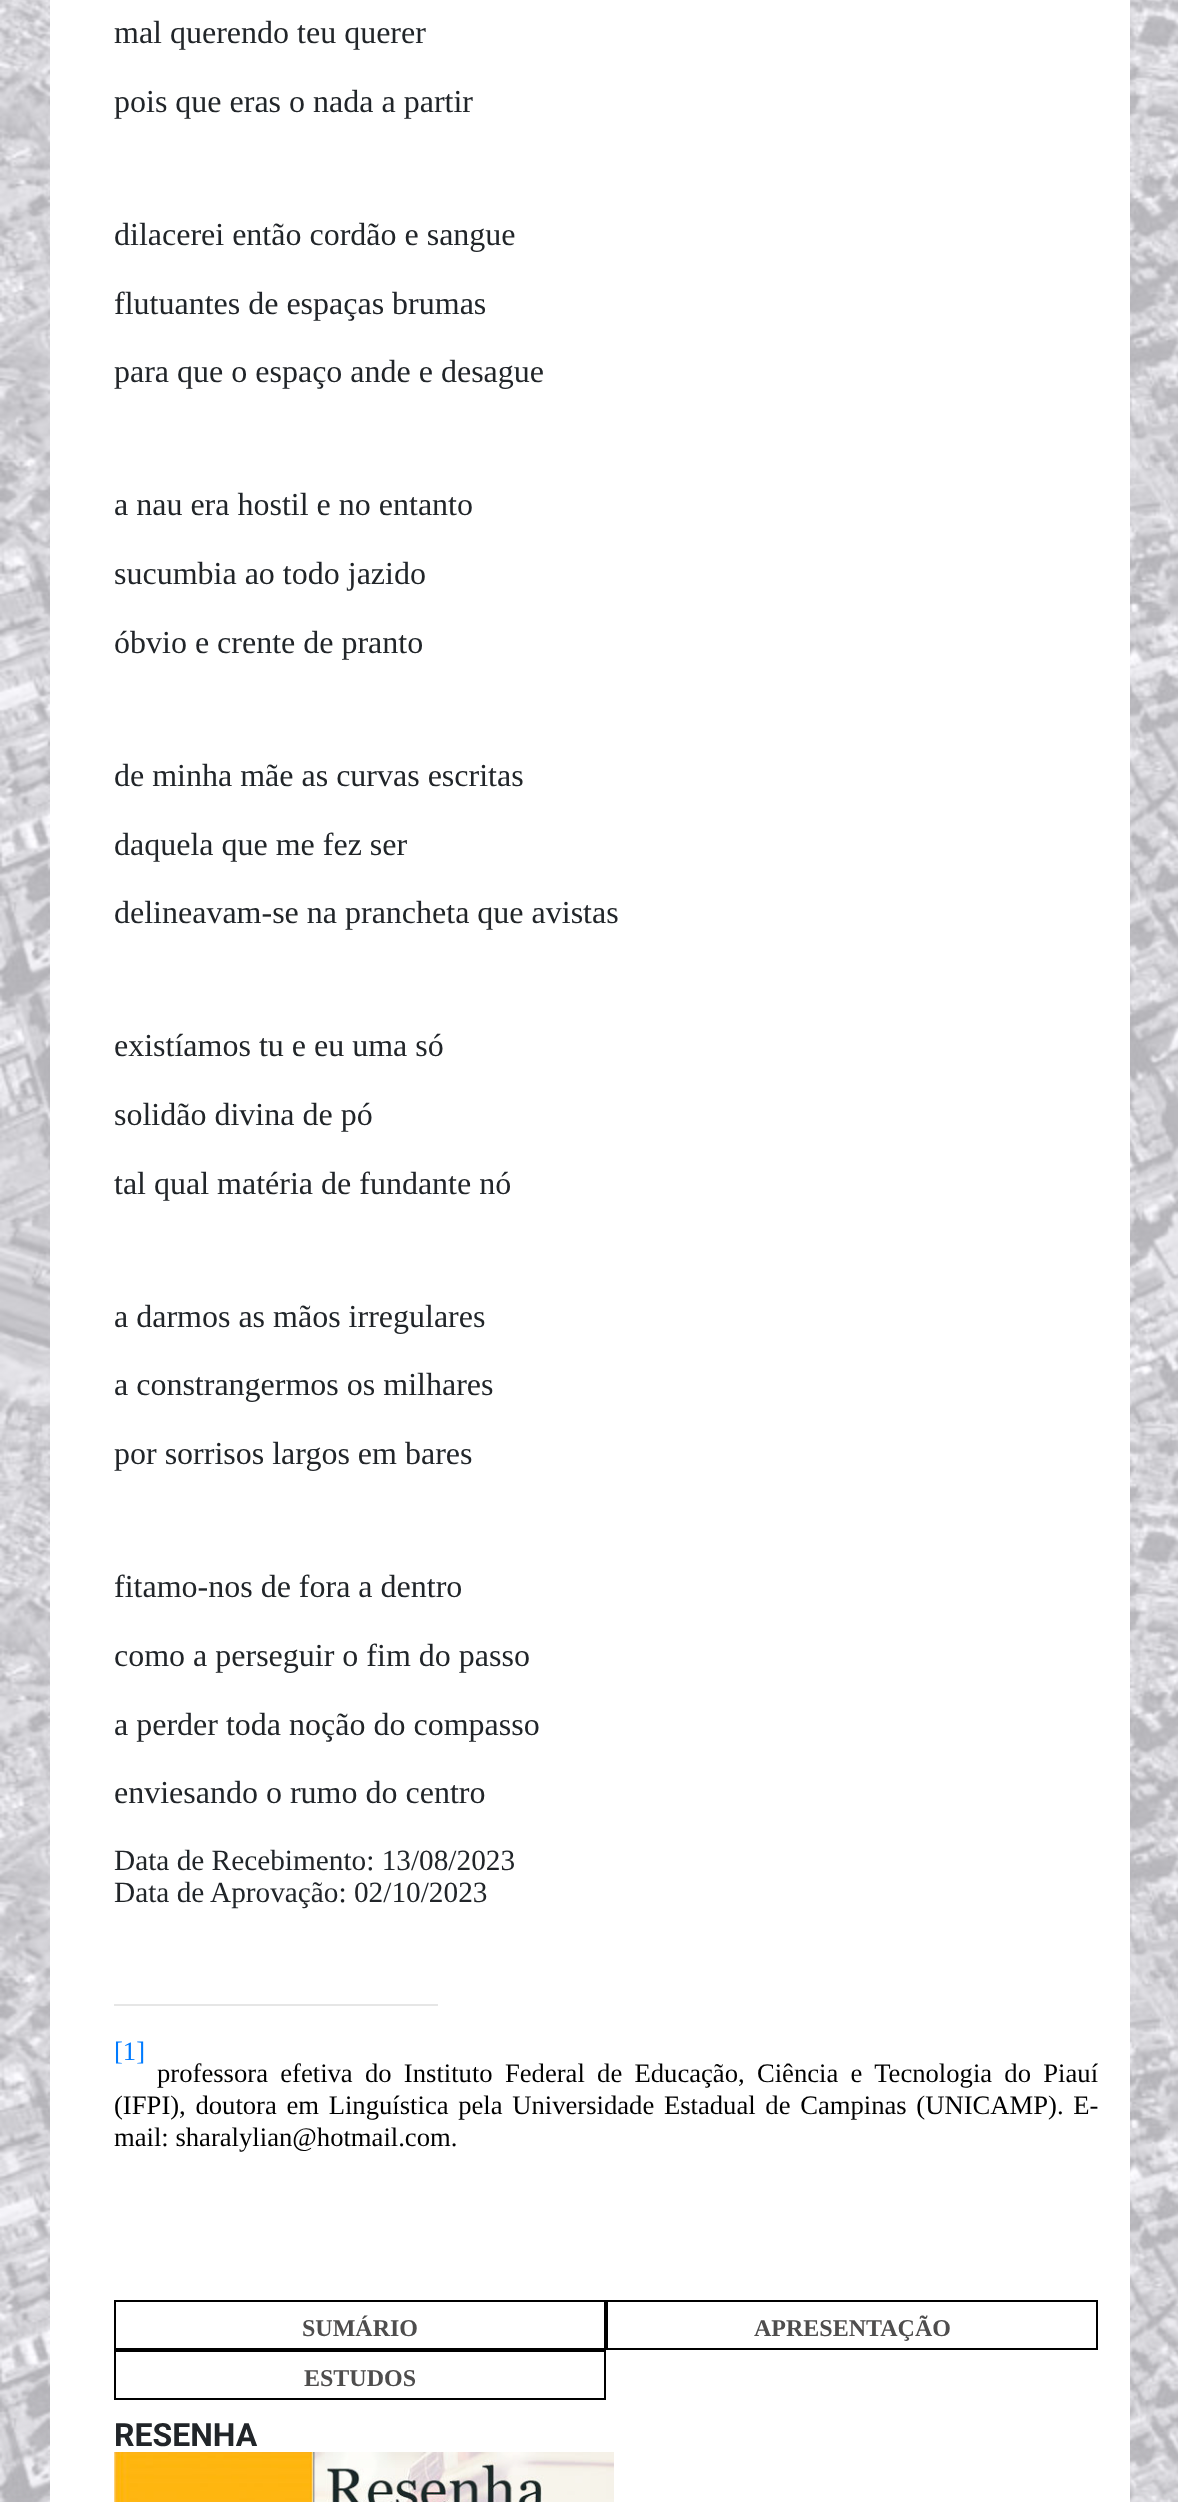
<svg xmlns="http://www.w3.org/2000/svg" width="1178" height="2502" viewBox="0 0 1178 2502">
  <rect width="100%" height="100%" fill="#ffffff"/>
  <image x="0" y="0" width="1178" height="2502" href="img1.png"/>
  <rect x="50" y="0" width="1080" height="2502" fill="#ffffff"/>
  <text x="114" y="43" font-family="Liberation Serif" font-size="32" fill="#212529">mal querendo teu querer</text>
  <text x="114" y="112" font-family="Liberation Serif" font-size="32" fill="#212529">pois que eras o nada a partir</text>
  <text x="114" y="245" font-family="Liberation Serif" font-size="32" fill="#212529">dilacerei então cordão e sangue</text>
  <text x="114" y="314" font-family="Liberation Serif" font-size="32" fill="#212529">flutuantes de espaças brumas</text>
  <text x="114" y="382" font-family="Liberation Serif" font-size="32" fill="#212529">para que o espaço ande e desague</text>
  <text x="114" y="515" font-family="Liberation Serif" font-size="32" fill="#212529">a nau era hostil e no entanto</text>
  <text x="114" y="584" font-family="Liberation Serif" font-size="32" fill="#212529">sucumbia ao todo jazido</text>
  <text x="114" y="653" font-family="Liberation Serif" font-size="32" fill="#212529">óbvio e crente de pranto</text>
  <text x="114" y="786" font-family="Liberation Serif" font-size="32" fill="#212529">de minha mãe as curvas escritas</text>
  <text x="114" y="855" font-family="Liberation Serif" font-size="32" fill="#212529">daquela que me fez ser</text>
  <text x="114" y="923" font-family="Liberation Serif" font-size="32" fill="#212529">delineavam-se na prancheta que avistas</text>
  <text x="114" y="1056" font-family="Liberation Serif" font-size="32" fill="#212529">existíamos tu e eu uma só</text>
  <text x="114" y="1125" font-family="Liberation Serif" font-size="32" fill="#212529">solidão divina de pó</text>
  <text x="114" y="1194" font-family="Liberation Serif" font-size="32" fill="#212529">tal qual matéria de fundante nó</text>
  <text x="114" y="1327" font-family="Liberation Serif" font-size="32" fill="#212529">a darmos as mãos irregulares</text>
  <text x="114" y="1395" font-family="Liberation Serif" font-size="32" fill="#212529">a constrangermos os milhares</text>
  <text x="114" y="1464" font-family="Liberation Serif" font-size="32" fill="#212529">por sorrisos largos em bares</text>
  <text x="114" y="1597" font-family="Liberation Serif" font-size="32" fill="#212529">fitamo-nos de fora a dentro</text>
  <text x="114" y="1666" font-family="Liberation Serif" font-size="32" fill="#212529">como a perseguir o fim do passo</text>
  <text x="114" y="1735" font-family="Liberation Serif" font-size="32" fill="#212529">a perder toda noção do compasso</text>
  <text x="114" y="1803" font-family="Liberation Serif" font-size="32" fill="#212529">enviesando o rumo do centro</text>
  <text x="114" y="1870" font-family="Liberation Serif" font-size="29.3" fill="#212529">Data de Recebimento: 13/08/2023</text>
  <text x="114" y="1902" font-family="Liberation Serif" font-size="29.3" fill="#212529">Data de Aprovação: 02/10/2023</text>
  <rect x="114" y="2004" width="324" height="2" fill="#e6e6e6"/>
  <text x="114" y="2060" font-family="Liberation Serif" font-size="26.65" fill="#007bff">[1]</text>
  <text x="157" y="2082" word-spacing="5.6" font-family="Liberation Serif" font-size="26.65" fill="#000000">professora efetiva do Instituto Federal de Educação, Ciência e Tecnologia do Piauí</text>
  <text x="114" y="2114" word-spacing="3" font-family="Liberation Serif" font-size="26.65" fill="#000000">(IFPI), doutora em Linguística pela Universidade Estadual de Campinas (UNICAMP). E-</text>
  <text x="114" y="2146" font-family="Liberation Serif" font-size="26.65" fill="#000000">mail: sharalylian@hotmail.com.</text>
  <rect x="115" y="2301" width="490" height="48" fill="none" stroke="#000000" stroke-width="2"/>
  <text x="302" y="2336" font-family="Liberation Serif" font-size="24" font-weight="bold" fill="#4e4d4d">SUMÁRIO</text>
  <rect x="607" y="2301" width="490" height="48" fill="none" stroke="#000000" stroke-width="2"/>
  <text x="754" y="2336" font-family="Liberation Serif" font-size="24" font-weight="bold" fill="#4e4d4d">APRESENTAÇÃO</text>
  <rect x="115" y="2351" width="490" height="48" fill="none" stroke="#000000" stroke-width="2"/>
  <text x="304" y="2386" font-family="Liberation Serif" font-size="24" font-weight="bold" fill="#4e4d4d">ESTUDOS</text>
  <text x="114" y="2446" font-family="Roboto" font-size="32" font-weight="bold" fill="#212529">RESENHA</text>
  <image x="114" y="2452" width="500" height="50" href="img2.png"/>
</svg>
